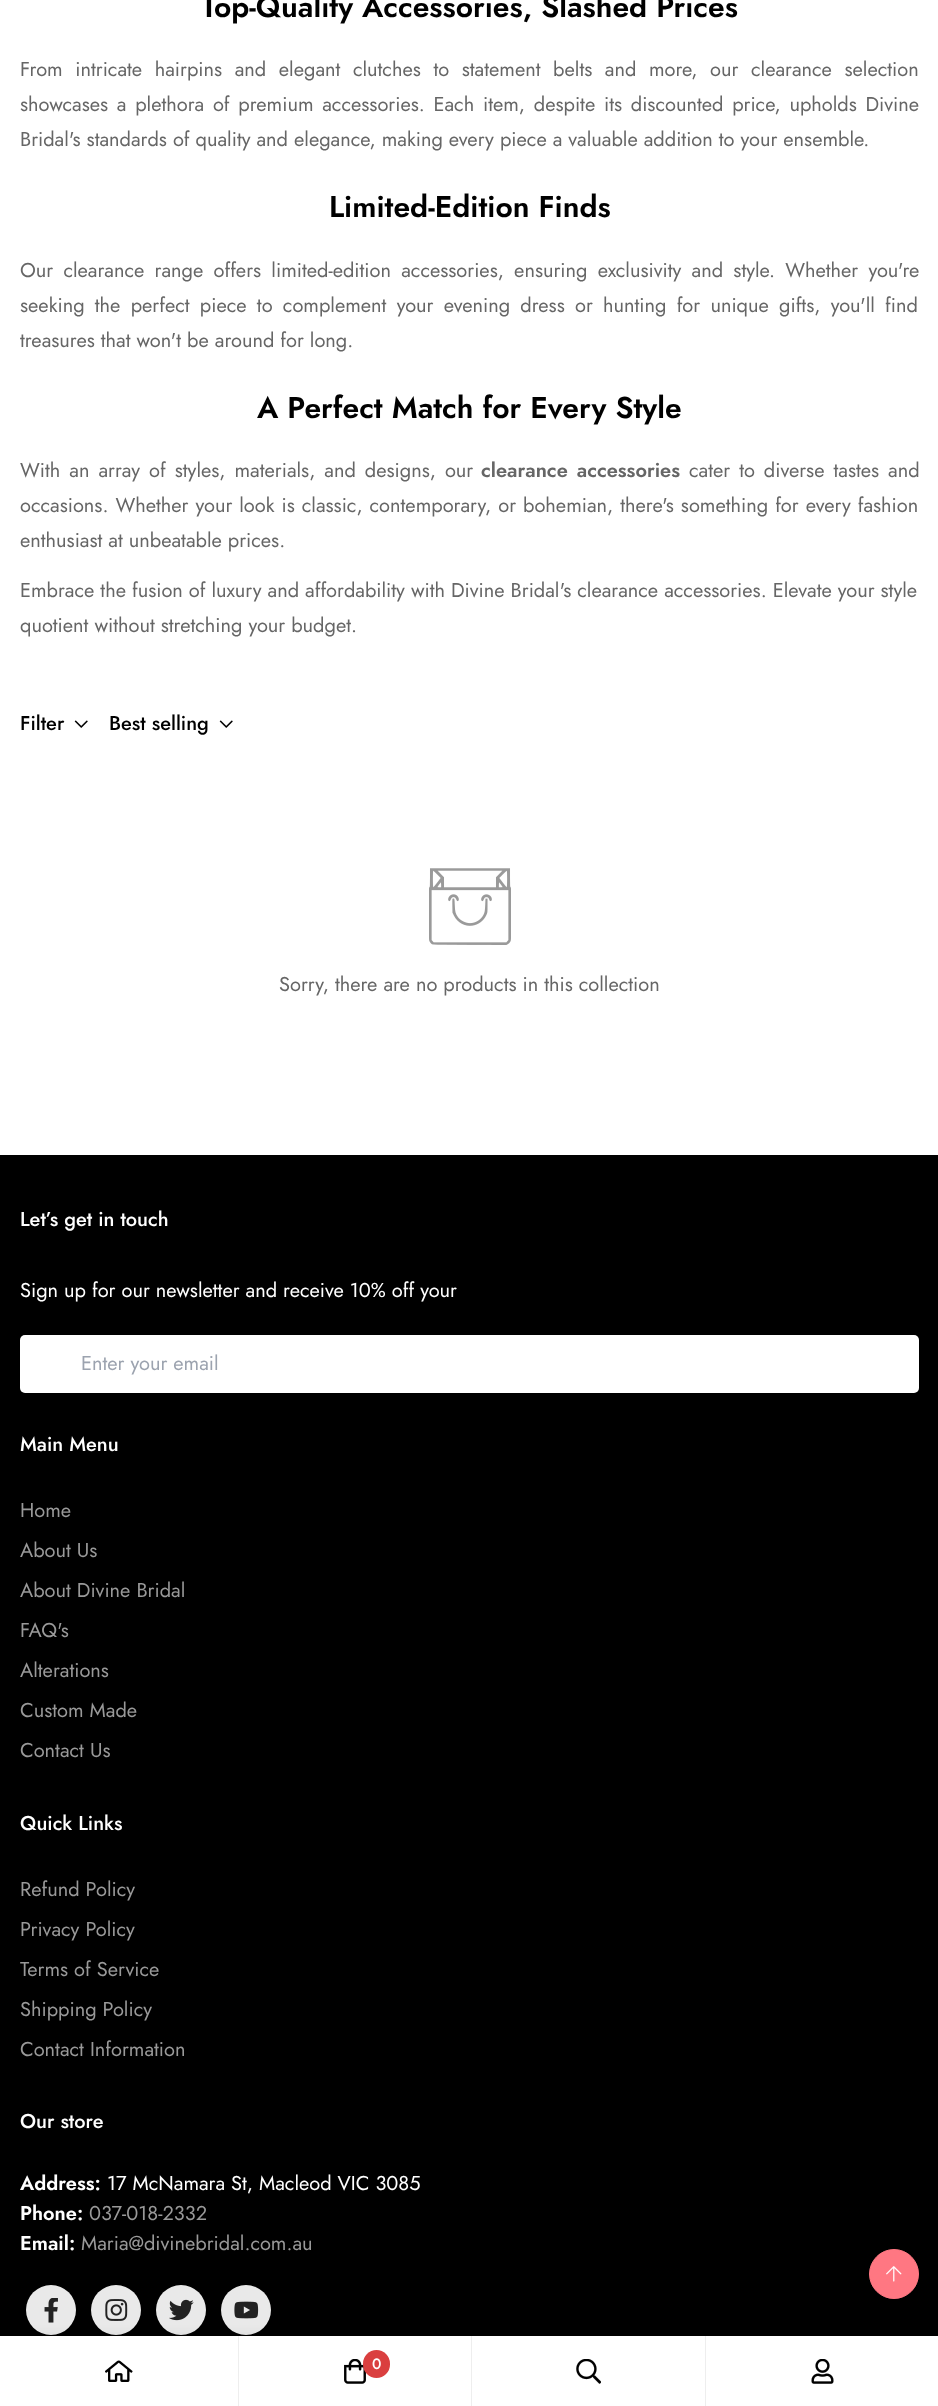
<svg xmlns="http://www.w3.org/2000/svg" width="938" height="2406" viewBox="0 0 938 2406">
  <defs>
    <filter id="blur1" x="-50%" y="-200%" width="200%" height="500%"><feGaussianBlur stdDeviation="6"/></filter>
  </defs>
  <rect width="100%" height="100%" fill="#ffffff"/>
  <text x="201" y="17" font-family="Jost" font-size="30" font-weight="600" fill="#000000">Top-Quality Accessories, Slashed Prices</text>
  <text x="20" y="76" word-spacing="6.6" font-family="Jost" font-size="20" fill="#666666">From intricate hairpins and elegant clutches to statement belts and more, our clearance selection</text>
  <text x="20" y="111" word-spacing="2.75" font-family="Jost" font-size="20" fill="#666666">showcases a plethora of premium accessories. Each item, despite its discounted price, upholds Divine</text>
  <text x="20" y="146" font-family="Jost" font-size="20" fill="#666666">Bridal's standards of quality and elegance, making every piece a valuable addition to your ensemble.</text>
  <text x="329" y="217" font-family="Jost" font-size="30" font-weight="600" fill="#000000">Limited-Edition Finds</text>
  <text x="20" y="277" word-spacing="4.25" font-family="Jost" font-size="20" fill="#666666">Our clearance range offers limited-edition accessories, ensuring exclusivity and style. Whether you're</text>
  <text x="20" y="312" word-spacing="4.25" font-family="Jost" font-size="20" fill="#666666">seeking the perfect piece to complement your evening dress or hunting for unique gifts, you'll find</text>
  <text x="20" y="347" font-family="Jost" font-size="20" fill="#666666">treasures that won't be around for long.</text>
  <text x="257" y="418" font-family="Jost" font-size="30" font-weight="600" fill="#000000">A Perfect Match for Every Style</text>
  <text x="20" y="477" word-spacing="3" font-family="Jost" font-size="20" fill="#666666">With an array of styles, materials, and designs, our</text>
  <text x="481" y="477" word-spacing="3" font-family="Jost" font-size="20" font-weight="600" fill="#666666">clearance accessories</text>
  <text x="689" y="477" word-spacing="3" font-family="Jost" font-size="20" fill="#666666">cater to diverse tastes and</text>
  <text x="20" y="512" word-spacing="1" font-family="Jost" font-size="20" fill="#666666">occasions. Whether your look is classic, contemporary, or bohemian, there's something for every fashion</text>
  <text x="20" y="547" font-family="Jost" font-size="20" fill="#666666">enthusiast at unbeatable prices.</text>
  <text x="20" y="597" font-family="Jost" font-size="20" fill="#666666">Embrace the fusion of luxury and affordability with Divine Bridal's clearance accessories. Elevate your style</text>
  <text x="20" y="632" font-family="Jost" font-size="20" fill="#666666">quotient without stretching your budget.</text>
  <text x="20" y="730" font-family="Jost" font-size="20" font-weight="500" fill="#000000">Filter</text>
  <image x="74" y="720" width="14" height="8" href="img1.png"/>
  <text x="109" y="730" font-family="Jost" font-size="20" font-weight="500" fill="#000000">Best selling</text>
  <image x="219" y="720" width="14" height="8" href="img1.png"/>
  <image x="429" y="868" width="82" height="77" href="img2.png"/>
  <text x="279" y="991" font-family="Jost" font-size="20" fill="#666666">Sorry, there are no products in this collection</text>
  <rect x="0" y="1155" width="938" height="1181" fill="#000000"/>
  <text x="20" y="1226" font-family="Jost" font-size="20" font-weight="500" fill="#ffffff">Let’s get in touch</text>
  <text x="20" y="1297" font-family="Jost" font-size="20" fill="#ffffff">Sign up for our newsletter and receive 10% off your</text>
  <rect x="20" y="1335" width="899" height="58" rx="5" fill="#ffffff"/>
  <text x="81" y="1370" font-family="Jost" font-size="20" fill="#9ca3af">Enter your email</text>
  <text x="20" y="1451" font-family="Jost" font-size="20" font-weight="500" fill="#ffffff">Main Menu</text>
  <text x="20" y="1517" font-family="Jost" font-size="20" fill="#999999">Home</text>
  <text x="20" y="1557" font-family="Jost" font-size="20" fill="#999999">About Us</text>
  <text x="20" y="1597" font-family="Jost" font-size="20" fill="#999999">About Divine Bridal</text>
  <text x="20" y="1637" font-family="Jost" font-size="20" fill="#999999">FAQ's</text>
  <text x="20" y="1677" font-family="Jost" font-size="20" fill="#999999">Alterations</text>
  <text x="20" y="1717" font-family="Jost" font-size="20" fill="#999999">Custom Made</text>
  <text x="20" y="1757" font-family="Jost" font-size="20" fill="#999999">Contact Us</text>
  <text x="20" y="1830" font-family="Jost" font-size="20" font-weight="500" fill="#ffffff">Quick Links</text>
  <text x="20" y="1896" font-family="Jost" font-size="20" fill="#999999">Refund Policy</text>
  <text x="20" y="1936" font-family="Jost" font-size="20" fill="#999999">Privacy Policy</text>
  <text x="20" y="1976" font-family="Jost" font-size="20" fill="#999999">Terms of Service</text>
  <text x="20" y="2016" font-family="Jost" font-size="20" fill="#999999">Shipping Policy</text>
  <text x="20" y="2056" font-family="Jost" font-size="20" fill="#999999">Contact Information</text>
  <text x="20" y="2128" font-family="Jost" font-size="20" font-weight="500" fill="#ffffff">Our store</text>
  <text x="20" y="2190" font-family="Jost" font-size="20" font-weight="600" fill="#ffffff">Address:</text>
  <text x="107" y="2190" font-family="Jost" font-size="20" fill="#ffffff">17 McNamara St, Macleod VIC 3085</text>
  <text x="20" y="2220" font-family="Jost" font-size="20" font-weight="600" fill="#ffffff">Phone:</text>
  <text x="89" y="2220" font-family="Jost" font-size="20" fill="#999999">037-018-2332</text>
  <text x="20" y="2250" font-family="Jost" font-size="20" font-weight="600" fill="#ffffff">Email:</text>
  <text x="81" y="2250" font-family="Jost" font-size="20" fill="#999999">Maria@divinebridal.com.au</text>
  <circle cx="51" cy="2310" r="25" fill="#e9e9e9"/>
  <image x="44" y="2298" width="14" height="25" href="img3.png"/>
  <circle cx="116" cy="2310" r="25" fill="#e9e9e9"/>
  <image x="105" y="2299" width="23" height="22" href="img4.png"/>
  <circle cx="181" cy="2310" r="25" fill="#e9e9e9"/>
  <image x="169" y="2299" width="25" height="22" href="img5.png"/>
  <circle cx="246" cy="2310" r="25" fill="#e9e9e9"/>
  <image x="234" y="2301" width="25" height="18" href="img6.png"/>
  <circle cx="894" cy="2274" r="24.5" fill="#ff7782" stroke="#ff7782"/>
  <image x="886" y="2266" width="16" height="16" href="img7.png"/>
  <rect x="0" y="2336" width="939" height="70" fill="#000000" fill-opacity="0.11" filter="url(#blur1)"/>
  <rect x="0" y="2336" width="938" height="70" fill="#ffffff"/>
  <rect x="238" y="2336" width="1" height="70" fill="#eeeeee"/>
  <image x="105" y="2360" width="28" height="22" href="img8.png"/>
  <rect x="471" y="2336" width="1" height="70" fill="#eeeeee"/>
  <image x="344" y="2359" width="22" height="25" href="img9.png"/>
  <rect x="363" y="2350" width="27" height="28" rx="13.5" fill="#da3f3f"/>
  <text x="372" y="2369" font-family="Jost" font-size="15" font-weight="500" fill="#ffffff">0</text>
  <rect x="705" y="2336" width="1" height="70" fill="#eeeeee"/>
  <image x="576" y="2359" width="25" height="25" href="img10.png"/>
  <image x="811" y="2359" width="23" height="25" href="img11.png"/>
</svg>
